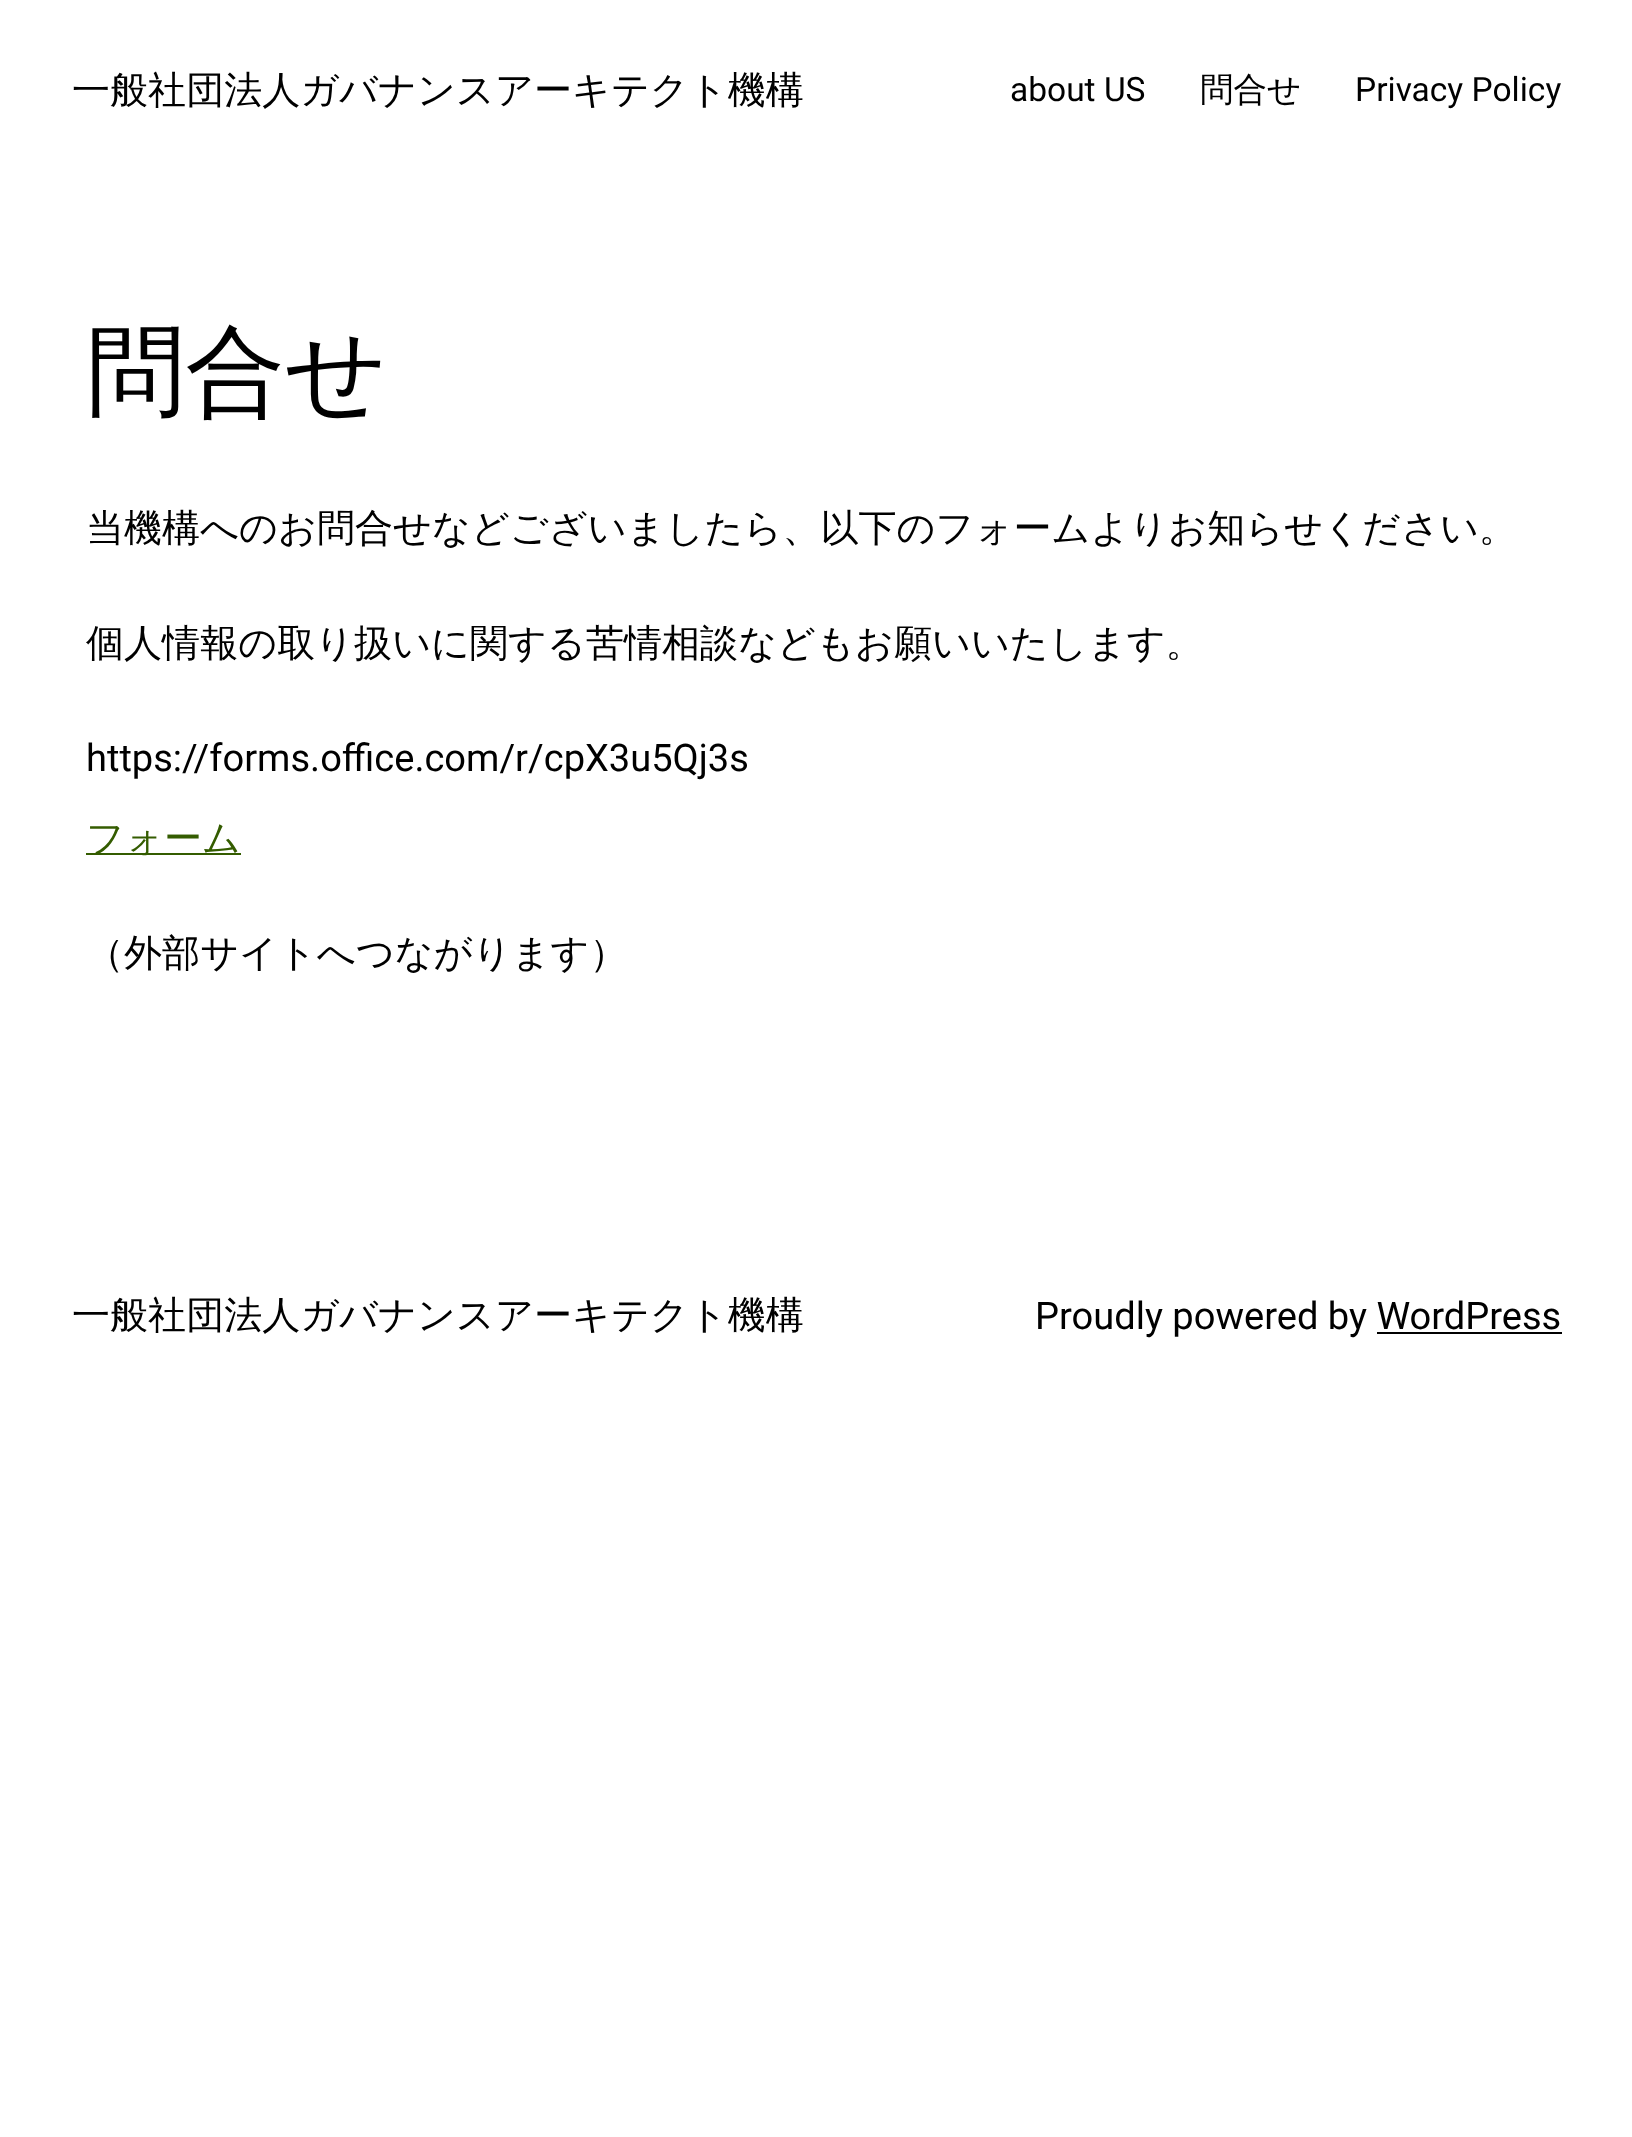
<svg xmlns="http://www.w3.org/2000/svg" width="1632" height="2137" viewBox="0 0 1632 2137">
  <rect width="100%" height="100%" fill="#ffffff"/>
  <text x="72" y="103" font-family="WenQuanYi Zen Hei" font-size="38.05" font-weight="500" fill="#000000">一般社団法人ガバナンスアーキテクト機構</text>
  <text x="1010" y="101" font-family="Roboto" font-size="33.5" fill="#000000">about US</text>
  <text x="1200" y="101" font-family="WenQuanYi Zen Hei" font-size="33.5" font-weight="500" fill="#000000">問合せ</text>
  <text x="1355" y="101" font-family="Roboto" font-size="33.5" fill="#000000">Privacy Policy</text>
  <text x="86" y="406" font-family="WenQuanYi Zen Hei" font-size="99.5" font-weight="500" fill="#000000">問合せ</text>
  <text x="86" y="541" font-family="WenQuanYi Zen Hei" font-size="38.05" font-weight="500" fill="#000000">当機構へのお問合せなどございましたら、以下のフォームよりお知らせください。</text>
  <text x="86" y="656" font-family="WenQuanYi Zen Hei" font-size="38.05" font-weight="500" fill="#000000">個人情報の取り扱いに関する苦情相談などもお願いいたします。</text>
  <text x="86" y="771" font-family="Roboto" font-size="38.05" fill="#000000">https://forms.office.com/r/cpX3u5Qj3s</text>
  <rect x="86" y="853" width="155" height="2" fill="#345c00"/>
  <text x="86" y="851" font-family="WenQuanYi Zen Hei" font-size="38.05" font-weight="500" fill="#345c00">フォーム</text>
  <text x="86" y="966" font-family="WenQuanYi Zen Hei" font-size="38.05" font-weight="500" fill="#000000">（外部サイトへつながります）</text>
  <text x="72" y="1328" font-family="WenQuanYi Zen Hei" font-size="38.05" font-weight="500" fill="#000000">一般社団法人ガバナンスアーキテクト機構</text>
  <text x="1035" y="1329" font-family="Roboto" font-size="38.05" fill="#000000">Proudly powered by WordPress</text>
  <rect x="1377" y="1332" width="185" height="2" fill="#000000"/>
</svg>
